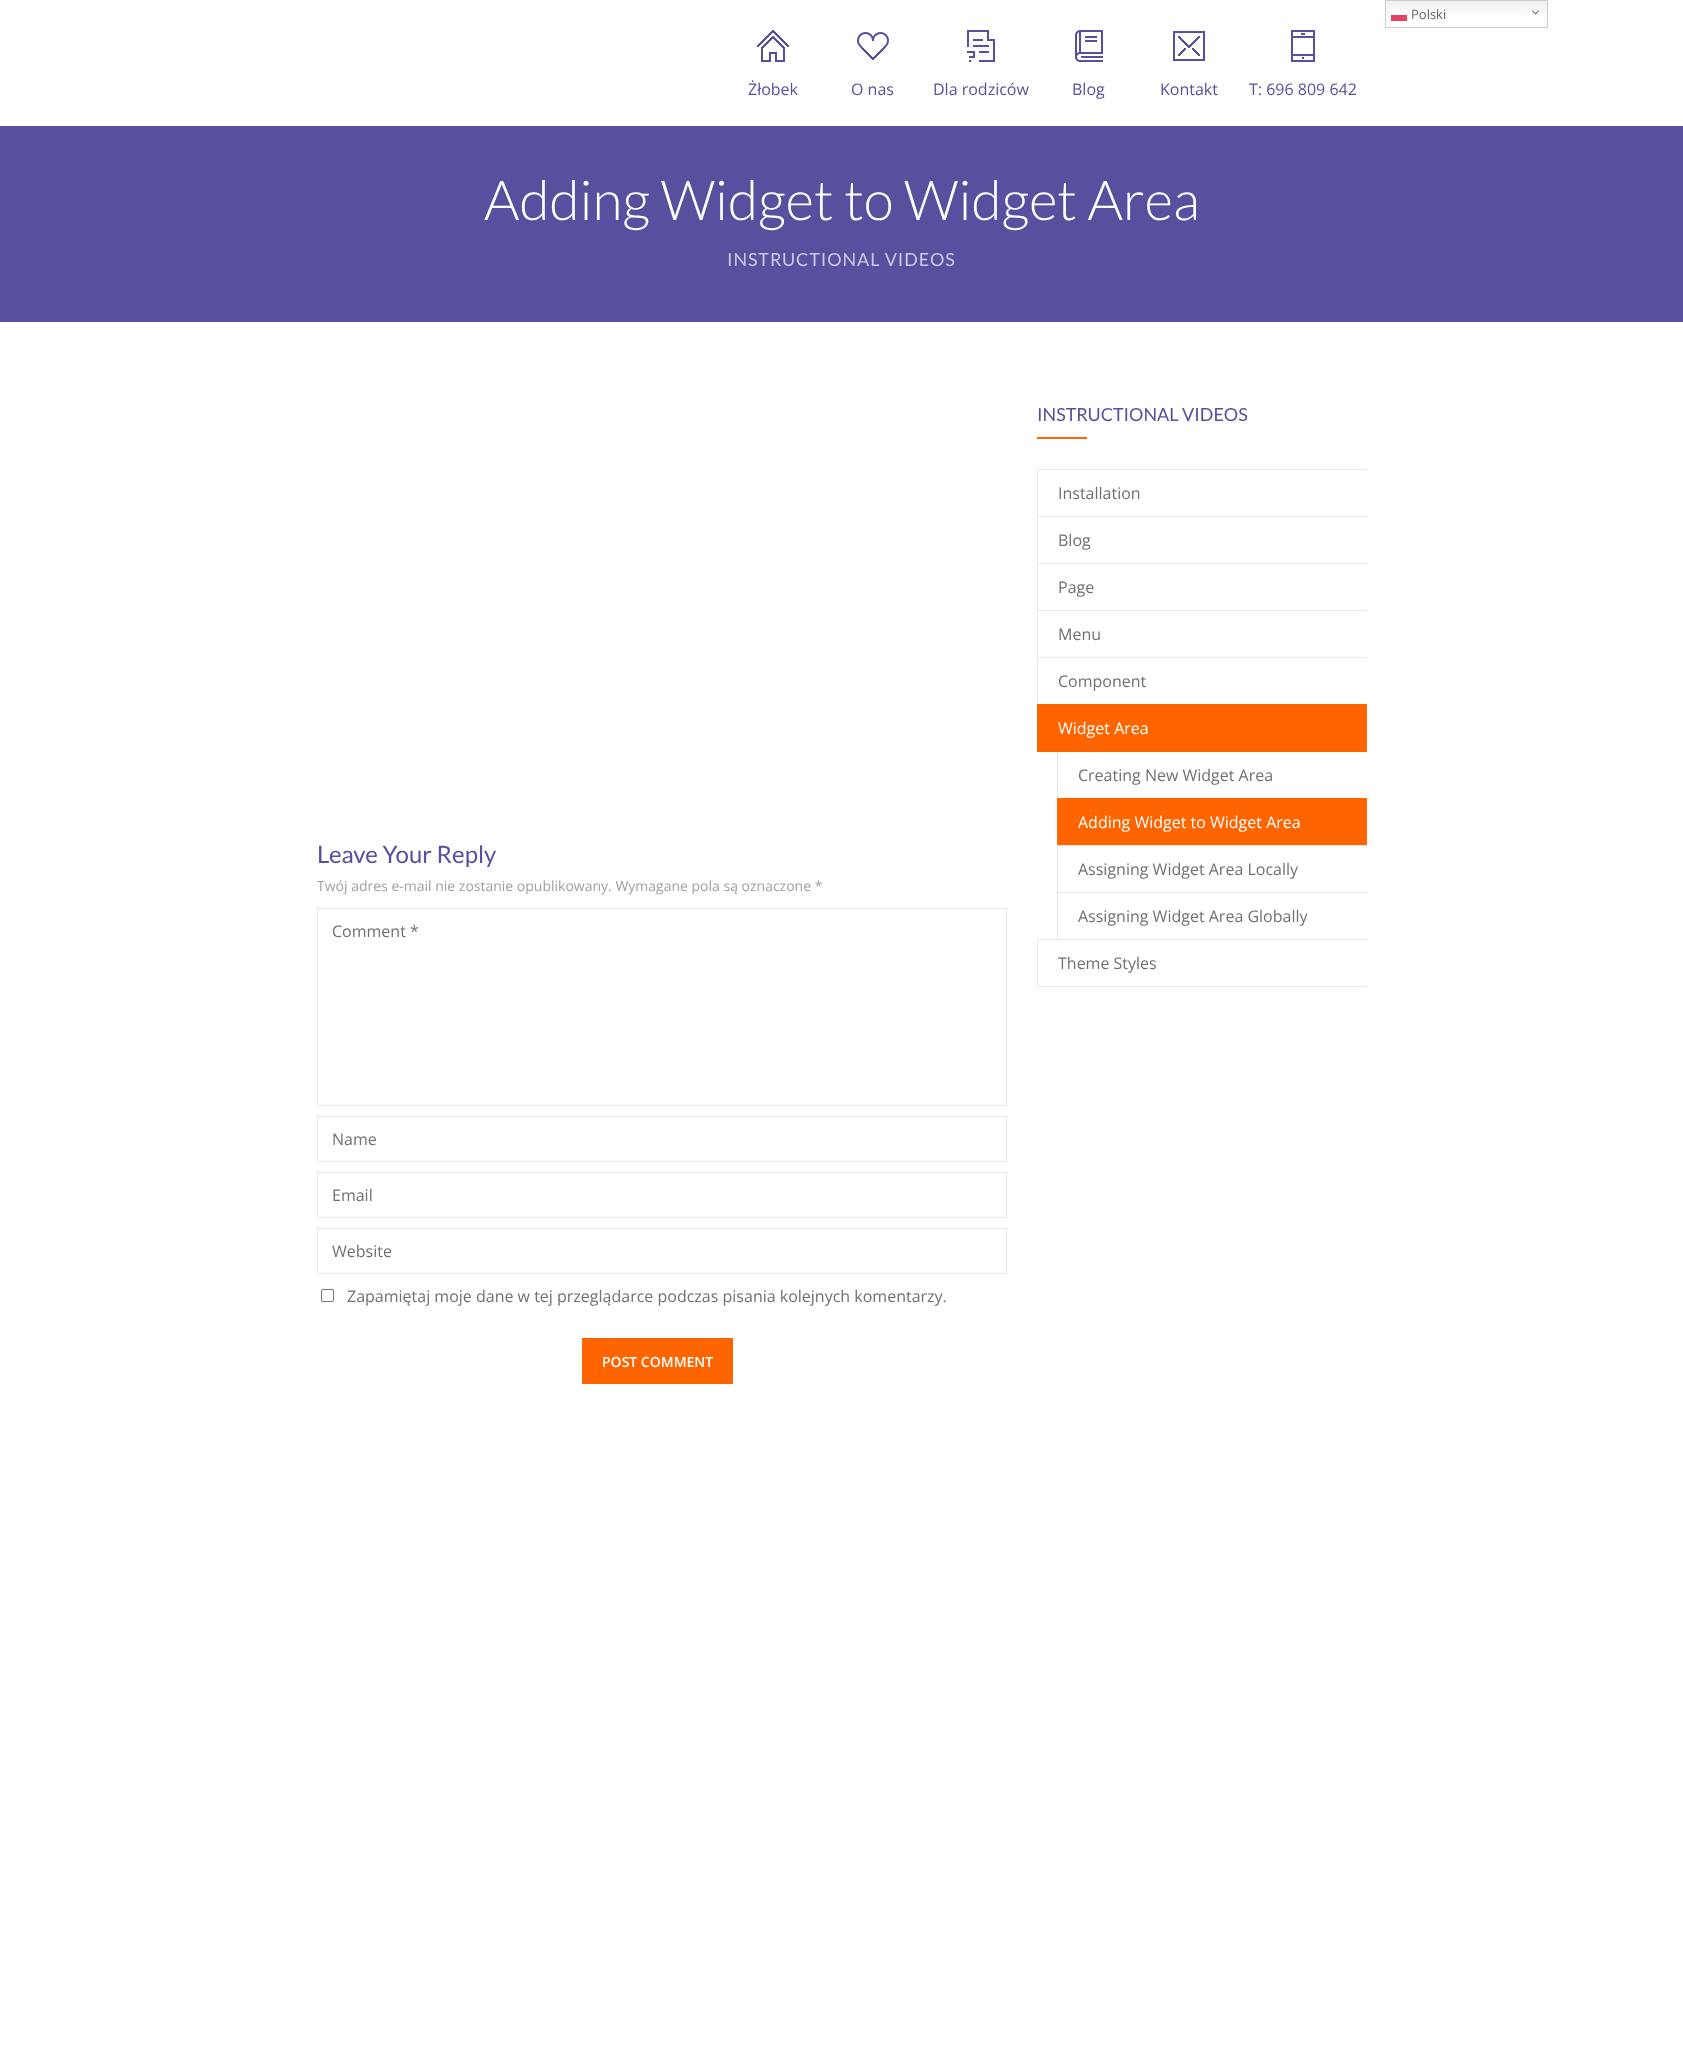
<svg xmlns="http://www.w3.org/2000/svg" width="1683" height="2066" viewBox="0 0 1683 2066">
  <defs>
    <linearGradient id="g1" gradientUnits="userSpaceOnUse" x1="1467" y1="0" x2="1467" y2="28"><stop offset="0" stop-color="#efefef"/><stop offset="0.7" stop-color="#ffffff"/></linearGradient>
    <linearGradient id="g2" gradientUnits="userSpaceOnUse" x1="1467" y1="0" x2="1467" y2="28"><stop offset="0" stop-color="#fcfcfc"/><stop offset="0.7" stop-color="#ffffff"/></linearGradient>
  </defs>
  <rect width="100%" height="100%" fill="#ffffff"/>
  <rect x="1386" y="1" width="161" height="16" fill="url(#g1)"/>
  <rect x="1391" y="9" width="16" height="6" fill="url(#g2)"/>
  <rect x="1385.5" y="0.5" width="162" height="27" fill="none" stroke="#cccccc"/>
  <text x="1411" y="19" font-family="Open Sans" font-size="13" fill="#666666">Polski</text>
  <image x="1532" y="10" width="7" height="5" href="img1.png"/>
  <rect x="1391" y="15" width="16" height="6" fill="#e34363"/>
  <image x="757" y="30" width="32" height="32" href="img2.png"/>
  <text x="748" y="95" font-family="Open Sans" font-size="16" fill="#56509f">Żłobek</text>
  <image x="857" y="32" width="32" height="28" href="img3.png"/>
  <text x="851" y="95" font-family="Open Sans" font-size="16" fill="#56509f">O nas</text>
  <image x="967" y="30" width="28" height="32" href="img4.png"/>
  <text x="933" y="95" font-family="Open Sans" font-size="16" fill="#56509f">Dla rodziców</text>
  <image x="1075" y="30" width="28" height="32" href="img5.png"/>
  <text x="1072" y="95" font-family="Open Sans" font-size="16" fill="#56509f">Blog</text>
  <image x="1173" y="31" width="32" height="30" href="img6.png"/>
  <text x="1160" y="95" font-family="Open Sans" font-size="16" fill="#56509f">Kontakt</text>
  <image x="1291" y="30" width="24" height="32" href="img7.png"/>
  <text x="1249" y="95" font-family="Open Sans" font-size="16" fill="#56509f">T: 696 809 642</text>
  <rect x="0" y="126" width="1683" height="196" fill="#56509f"/>
  <text x="484" y="220" font-family="Lato" font-size="55" font-weight="300" fill="#ffffff">Adding Widget to Widget Area</text>
  <text x="727" y="266" font-family="Lato" font-size="18" letter-spacing="0.9" fill="#cccae2">INSTRUCTIONAL VIDEOS</text>
  <text x="1037" y="421" font-family="Lato" font-size="18" fill="#56509f">INSTRUCTIONAL VIDEOS</text>
  <rect x="1037" y="437" width="50" height="2" fill="#fe6500"/>
  <rect x="1037" y="469" width="330" height="1" fill="#e8e8e8"/>
  <rect x="1037" y="516" width="330" height="1" fill="#e8e8e8"/>
  <rect x="1037" y="469" width="1" height="48" fill="#e8e8e8"/>
  <text x="1058" y="499" font-family="Open Sans" font-size="16" fill="#707070">Installation</text>
  <rect x="1037" y="563" width="330" height="1" fill="#e8e8e8"/>
  <rect x="1037" y="516" width="1" height="48" fill="#e8e8e8"/>
  <text x="1058" y="546" font-family="Open Sans" font-size="16" fill="#707070">Blog</text>
  <rect x="1037" y="610" width="330" height="1" fill="#e8e8e8"/>
  <rect x="1037" y="563" width="1" height="48" fill="#e8e8e8"/>
  <text x="1058" y="593" font-family="Open Sans" font-size="16" fill="#707070">Page</text>
  <rect x="1037" y="657" width="330" height="1" fill="#e8e8e8"/>
  <rect x="1037" y="610" width="1" height="95" fill="#e8e8e8"/>
  <text x="1058" y="640" font-family="Open Sans" font-size="16" fill="#707070">Menu</text>
  <text x="1058" y="687" font-family="Open Sans" font-size="16" fill="#707070">Component</text>
  <rect x="1037" y="704" width="330" height="48" fill="#fe6500"/>
  <text x="1058" y="734" font-family="Open Sans" font-size="16" fill="#ffffff">Widget Area</text>
  <rect x="1057" y="752" width="1" height="47" fill="#e8e8e8"/>
  <text x="1078" y="781" font-family="Open Sans" font-size="16" fill="#707070">Creating New Widget Area</text>
  <rect x="1057" y="798" width="310" height="47" fill="#fe6500"/>
  <text x="1078" y="828" font-family="Open Sans" font-size="16" fill="#ffffff">Adding Widget to Widget Area</text>
  <rect x="1057" y="845" width="310" height="1" fill="#e8e8e8"/>
  <rect x="1057" y="892" width="310" height="1" fill="#e8e8e8"/>
  <rect x="1057" y="845" width="1" height="95" fill="#e8e8e8"/>
  <text x="1078" y="875" font-family="Open Sans" font-size="16" fill="#707070">Assigning Widget Area Locally</text>
  <text x="1078" y="922" font-family="Open Sans" font-size="16" fill="#707070">Assigning Widget Area Globally</text>
  <rect x="1037" y="939" width="330" height="1" fill="#e8e8e8"/>
  <rect x="1037" y="986" width="330" height="1" fill="#e8e8e8"/>
  <rect x="1037" y="939" width="1" height="48" fill="#e8e8e8"/>
  <text x="1058" y="969" font-family="Open Sans" font-size="16" fill="#707070">Theme Styles</text>
  <text x="317" y="863" font-family="Lato" font-size="24" fill="#56509f">Leave Your Reply</text>
  <text x="317" y="891" font-family="Open Sans" font-size="14" fill="#a0a0a0">Twój adres e-mail nie zostanie opublikowany. Wymagane pola są oznaczone *</text>
  <rect x="317.5" y="908.5" width="689" height="197" fill="none" stroke="#e8e8e8"/>
  <text x="332" y="937" font-family="Open Sans" font-size="16" fill="#707070">Comment *</text>
  <rect x="317.5" y="1116.5" width="689" height="45" fill="none" stroke="#e8e8e8"/>
  <text x="332" y="1145" font-family="Open Sans" font-size="16" fill="#707070">Name</text>
  <rect x="317.5" y="1172.5" width="689" height="45" fill="none" stroke="#e8e8e8"/>
  <text x="332" y="1201" font-family="Open Sans" font-size="16" fill="#707070">Email</text>
  <rect x="317.5" y="1228.5" width="689" height="45" fill="none" stroke="#e8e8e8"/>
  <text x="332" y="1257" font-family="Open Sans" font-size="16" fill="#707070">Website</text>
  <rect x="321.5" y="1289.5" width="12" height="12" rx="1.5" fill="none" stroke="#767676"/>
  <text x="347" y="1302" font-family="Open Sans" font-size="16" fill="#707070">Zapamiętaj moje dane w tej przeglądarce podczas pisania kolejnych komentarzy.</text>
  <rect x="582" y="1338" width="151" height="46" fill="#fe6500"/>
  <text x="602" y="1367" font-family="Open Sans" font-size="14" font-weight="600" fill="#ffffff">POST COMMENT</text>
</svg>
